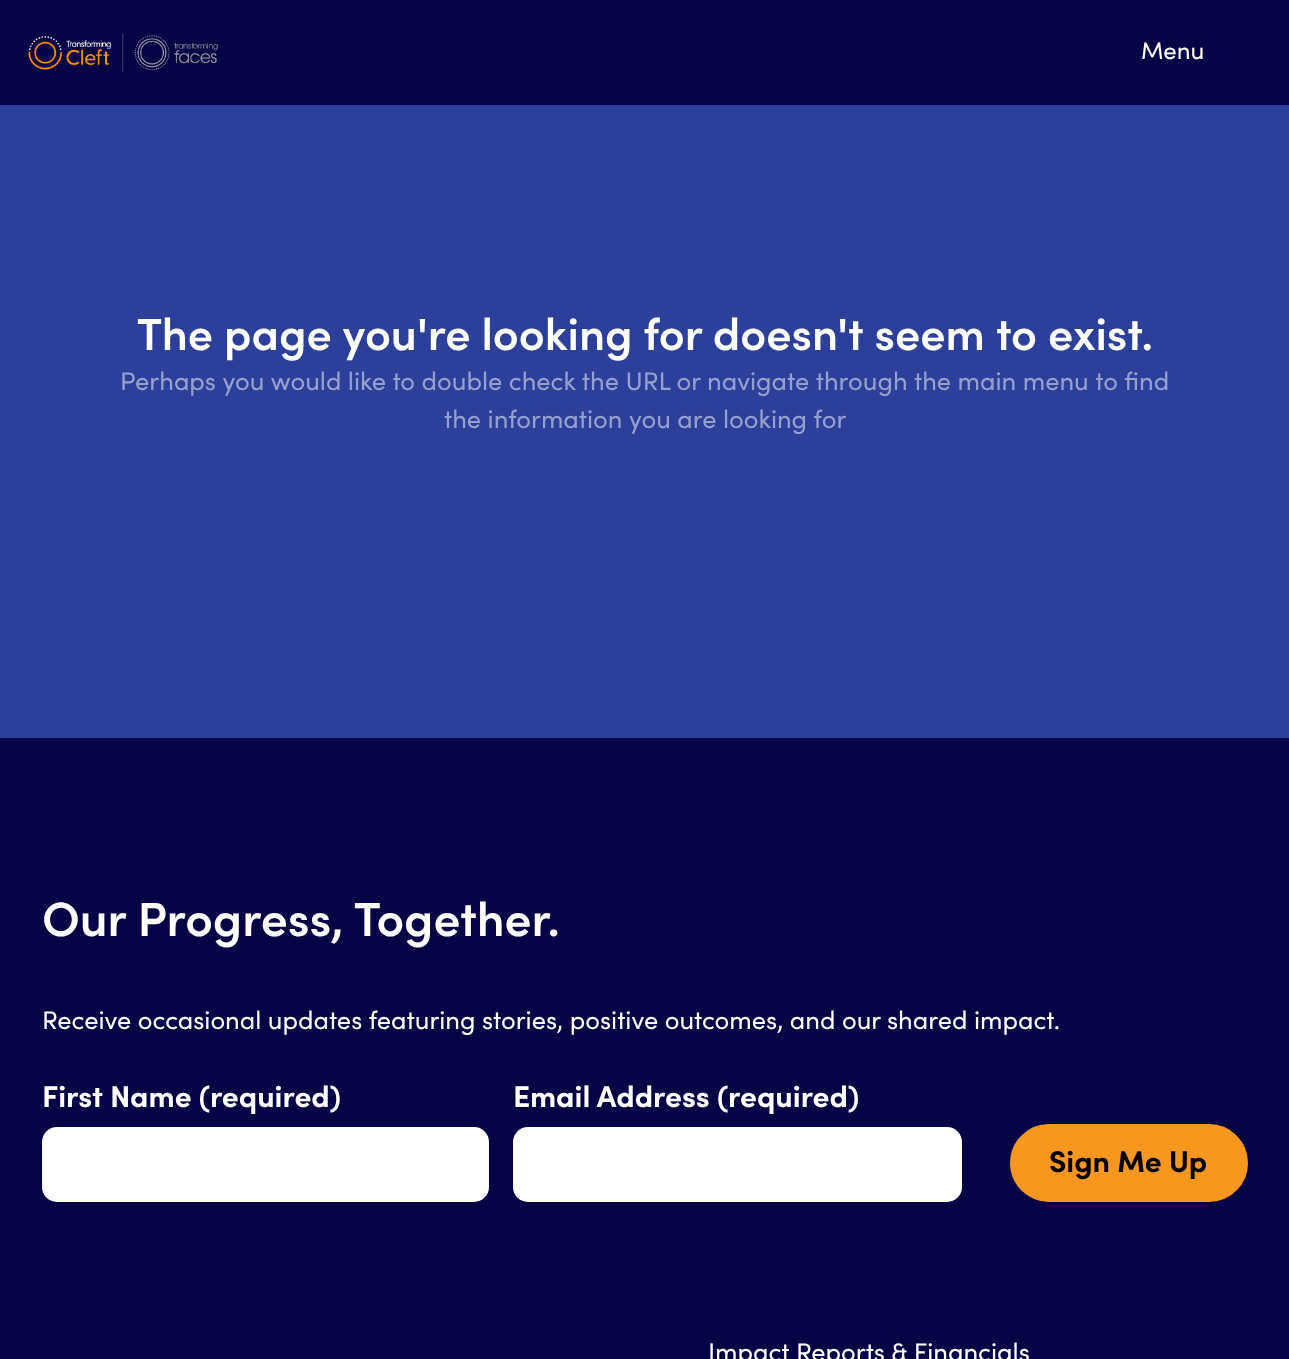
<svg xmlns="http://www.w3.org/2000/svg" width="1289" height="1359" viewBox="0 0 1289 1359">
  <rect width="100%" height="100%" fill="#2c409b"/>
  <rect x="0" y="0" width="1289" height="105" fill="#060246"/>
  <image x="28" y="33" width="190" height="39" href="img1.png"/>
  <text x="1141" y="59" font-family="Sofia" font-size="24" fill="#ffffff">Menu</text>
  <text x="137" y="350" font-family="Sofia" font-size="45" font-weight="600" fill="#ffffff">The page you're looking for doesn't seem to exist.</text>
  <text x="120" y="390" font-family="Sofia" font-size="25.5" fill="#96a0cd">Perhaps you would like to double check the URL or navigate through the main menu to find</text>
  <text x="444" y="428" font-family="Sofia" font-size="25.5" fill="#96a0cd">the information you are looking for</text>
  <rect x="0" y="738" width="1289" height="621" fill="#060246"/>
  <text x="42" y="936" font-family="Sofia" font-size="48" font-weight="600" fill="#ffffff">Our Progress, Together.</text>
  <text x="42" y="1029" font-family="Sofia" font-size="25.5" fill="#ffffff">Receive occasional updates featuring stories, positive outcomes, and our shared impact.</text>
  <text x="42" y="1107" font-family="Sofia" font-size="30" font-weight="bold" fill="#ffffff">First Name (required)</text>
  <rect x="42" y="1127" width="447" height="75" rx="15" fill="#ffffff"/>
  <text x="513" y="1107" font-family="Sofia" font-size="30" font-weight="bold" fill="#ffffff">Email Address (required)</text>
  <rect x="513" y="1127" width="449" height="75" rx="15" fill="#ffffff"/>
  <rect x="1011.5" y="1125.5" width="235" height="75" rx="37.5" fill="#f8971d" stroke="#f8971d" stroke-width="3"/>
  <text x="1049" y="1172" font-family="Sofia" font-size="30" font-weight="bold" fill="#000000">Sign Me Up</text>
  <text x="708" y="1361" font-family="Sofia" font-size="25.5" fill="#ffffff">Impact Reports &amp; Financials</text>
</svg>
